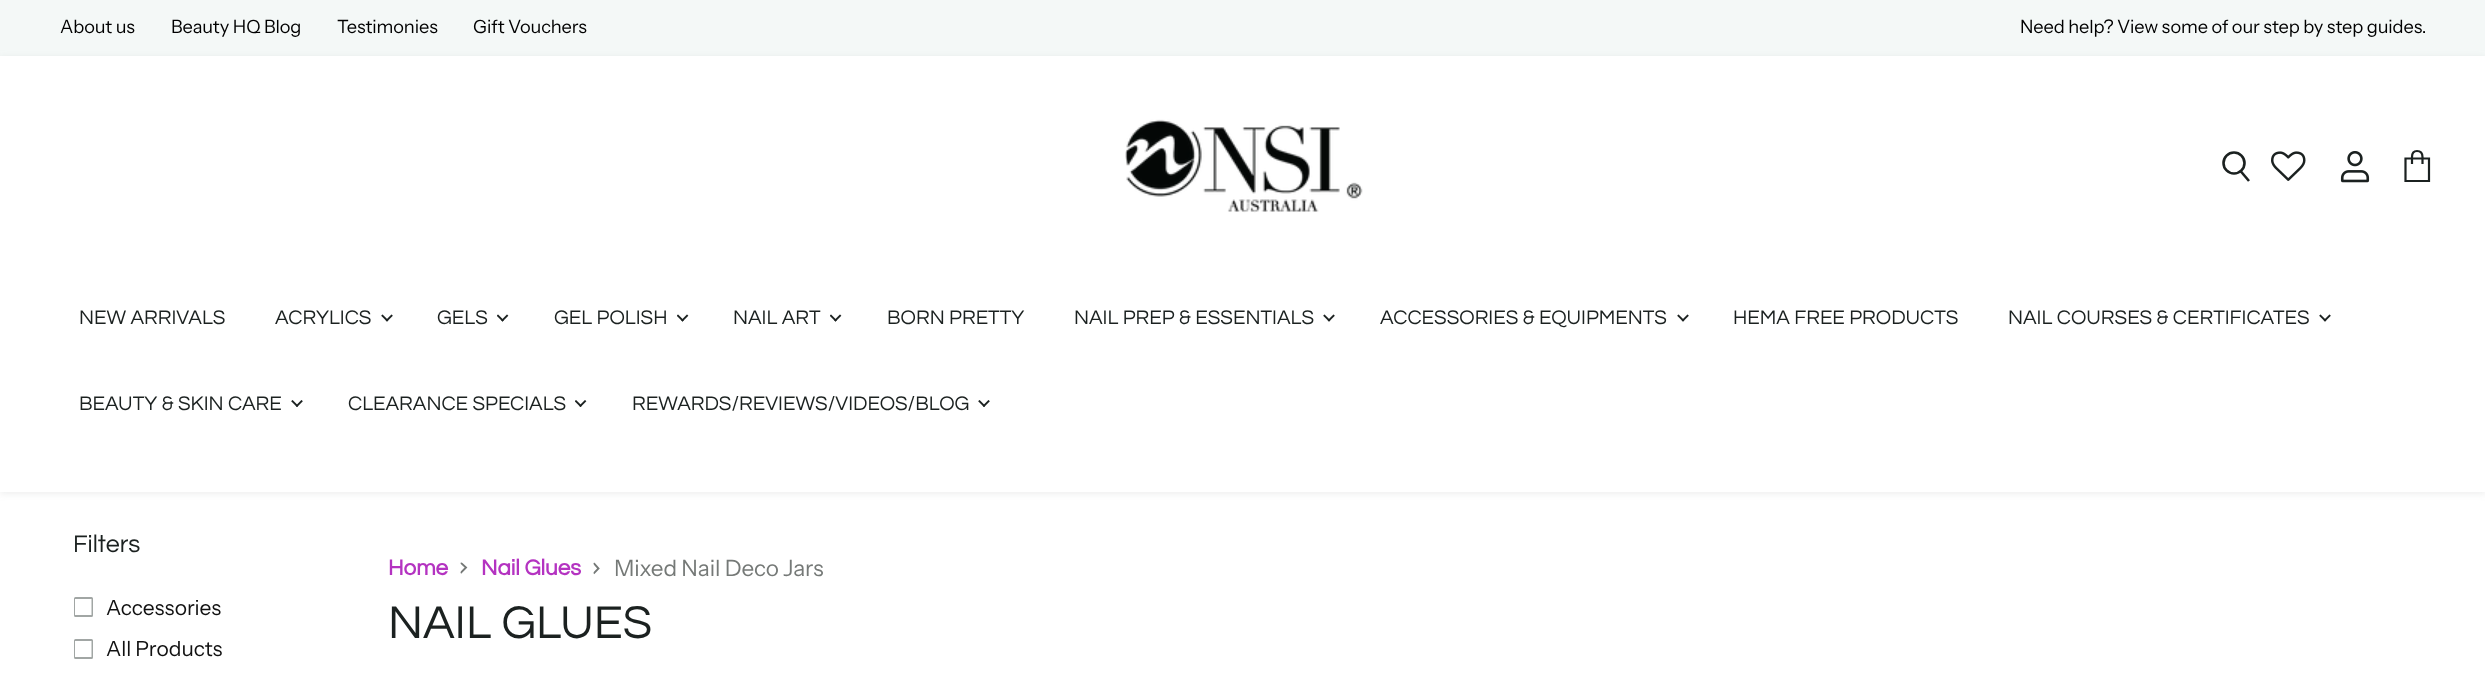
<svg xmlns="http://www.w3.org/2000/svg" width="2485" height="680" viewBox="0 0 2485 680">
  <defs>
    <clipPath id="clip1"><path d="M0 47H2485V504H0ZM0 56H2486V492H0Z" clip-rule="evenodd"/></clipPath>
    <filter id="blur1" x="-50%" y="-200%" width="200%" height="500%"><feGaussianBlur stdDeviation="3"/></filter>
    <clipPath id="clip2"><path d="M460.5 574.5V562.5H468V574.5Z"/></clipPath>
    <clipPath id="clip3"><path d="M593.5 574.5V562.5H601V574.5Z"/></clipPath>
  </defs>
  <rect width="100%" height="100%" fill="#ffffff"/>
  <rect x="0" y="0" width="2485" height="56" fill="#f4f8f7"/>
  <text x="60" y="33" font-family="Instrument Sans" font-size="18.25" letter-spacing="-0.1" fill="#000000">About us</text>
  <text x="171" y="33" font-family="Instrument Sans" font-size="18.25" letter-spacing="-0.1" fill="#000000">Beauty HQ Blog</text>
  <text x="337" y="33" font-family="Instrument Sans" font-size="18.25" letter-spacing="-0.1" fill="#000000">Testimonies</text>
  <text x="473" y="33" font-family="Instrument Sans" font-size="18.25" letter-spacing="-0.1" fill="#000000">Gift Vouchers</text>
  <text x="2020" y="33" font-family="Instrument Sans" font-size="18.25" letter-spacing="-0.1" fill="#000000">Need help? View some of our step by step guides.</text>
  <g clip-path="url(#clip1)">
    <rect x="0" y="57" width="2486" height="437" fill="#bac0be" fill-opacity="0.25" filter="url(#blur1)"/>
  </g>
  <image x="1125" y="119" width="238" height="94" href="img1.png"/>
  <path d="M2249 181L2240.5 171" fill="none" stroke="#1b2120" stroke-width="2.6"/>
  <circle cx="2234" cy="163" r="10.5" fill="none" stroke="#1b2120" stroke-width="2.6"/>
  <image x="2271" y="151" width="35" height="30" href="img2.png"/>
  <image x="2340" y="151" width="30" height="32" href="img3.png"/>
  <path d="M2405.5 158.5H2429V181H2405.5ZM2422.5 164V157C2422.5 152.5 2420 151 2417 151C2414.5 151 2412 152.5 2412 157V164" fill="none" stroke="#1b2120" stroke-width="2.2"/>
  <text x="79" y="324" font-family="Questrial" font-size="20.5" fill="#1b2120">NEW ARRIVALS</text>
  <text x="275" y="324" font-family="Questrial" font-size="20.5" fill="#1b2120">ACRYLICS</text>
  <image x="381" y="314" width="12" height="8" href="img4.png"/>
  <text x="437" y="324" font-family="Questrial" font-size="20.5" fill="#1b2120">GELS</text>
  <image x="497" y="314" width="12" height="8" href="img5.png"/>
  <text x="554" y="324" font-family="Questrial" font-size="20.5" fill="#1b2120">GEL POLISH</text>
  <image x="677" y="314" width="12" height="8" href="img5.png"/>
  <text x="733" y="324" font-family="Questrial" font-size="20.5" fill="#1b2120">NAIL ART</text>
  <image x="830" y="314" width="12" height="8" href="img5.png"/>
  <text x="887" y="324" font-family="Questrial" font-size="20.5" fill="#1b2120">BORN PRETTY</text>
  <text x="1074" y="324" font-family="Questrial" font-size="20.5" fill="#1b2120">NAIL PREP &amp; ESSENTIALS</text>
  <image x="1323" y="314" width="12" height="8" href="img4.png"/>
  <text x="1380" y="324" font-family="Questrial" font-size="20.5" fill="#1b2120">ACCESSORIES &amp; EQUIPMENTS</text>
  <image x="1677" y="314" width="12" height="8" href="img4.png"/>
  <text x="1733" y="324" font-family="Questrial" font-size="20.5" fill="#1b2120">HEMA FREE PRODUCTS</text>
  <text x="2008" y="324" font-family="Questrial" font-size="20.5" fill="#1b2120">NAIL COURSES &amp; CERTIFICATES</text>
  <image x="2319" y="314" width="12" height="8" href="img4.png"/>
  <text x="79" y="410" font-family="Questrial" font-size="20.5" fill="#1b2120">BEAUTY &amp; SKIN CARE</text>
  <image x="291" y="400" width="12" height="7" href="img6.png"/>
  <text x="348" y="410" font-family="Questrial" font-size="20.5" fill="#1b2120">CLEARANCE SPECIALS</text>
  <image x="575" y="400" width="12" height="7" href="img7.png"/>
  <text x="632" y="410" font-family="Questrial" font-size="20.5" fill="#1b2120">REWARDS/REVIEWS/VIDEOS/BLOG</text>
  <image x="978" y="400" width="12" height="7" href="img6.png"/>
  <text x="73" y="552" font-family="Questrial" font-size="25" fill="#1b2120">Filters</text>
  <rect x="75" y="598" width="17" height="18" rx="0.5" fill="none" stroke="#a1a6a4" stroke-width="2"/>
  <image x="75" y="599" width="17" height="16" href="img8.png"/>
  <text x="106" y="615" font-family="Instrument Sans" font-size="21" letter-spacing="-0.1" fill="#111111">Accessories</text>
  <rect x="75" y="640" width="17" height="18" rx="0.5" fill="none" stroke="#a1a6a4" stroke-width="2"/>
  <image x="75" y="641" width="17" height="16" href="img8.png"/>
  <text x="106" y="656" font-family="Instrument Sans" font-size="21" letter-spacing="-0.1" fill="#111111">All Products</text>
  <text x="388" y="575" font-family="Questrial" font-size="22.5" font-weight="bold" letter-spacing="-0.1" fill="#b433c1">Home</text>
  <g clip-path="url(#clip2)">
    <path d="M460.5 573L466 567.5L460.5 562.5" fill="none" stroke="#757977" stroke-width="1.9"/>
  </g>
  <text x="481" y="575" font-family="Questrial" font-size="22.5" font-weight="bold" letter-spacing="-0.1" fill="#b433c1">Nail Glues</text>
  <g clip-path="url(#clip3)">
    <path d="M593.5 573.5L598.5 568.5L593.5 563" fill="none" stroke="#757977" stroke-width="1.9"/>
  </g>
  <text x="614" y="576" font-family="Instrument Sans" font-size="22.5" letter-spacing="-0.1" fill="#757977">Mixed Nail Deco Jars</text>
  <text x="388" y="638" font-family="Questrial" font-size="47.75" fill="#1b2120">NAIL GLUES</text>
</svg>
